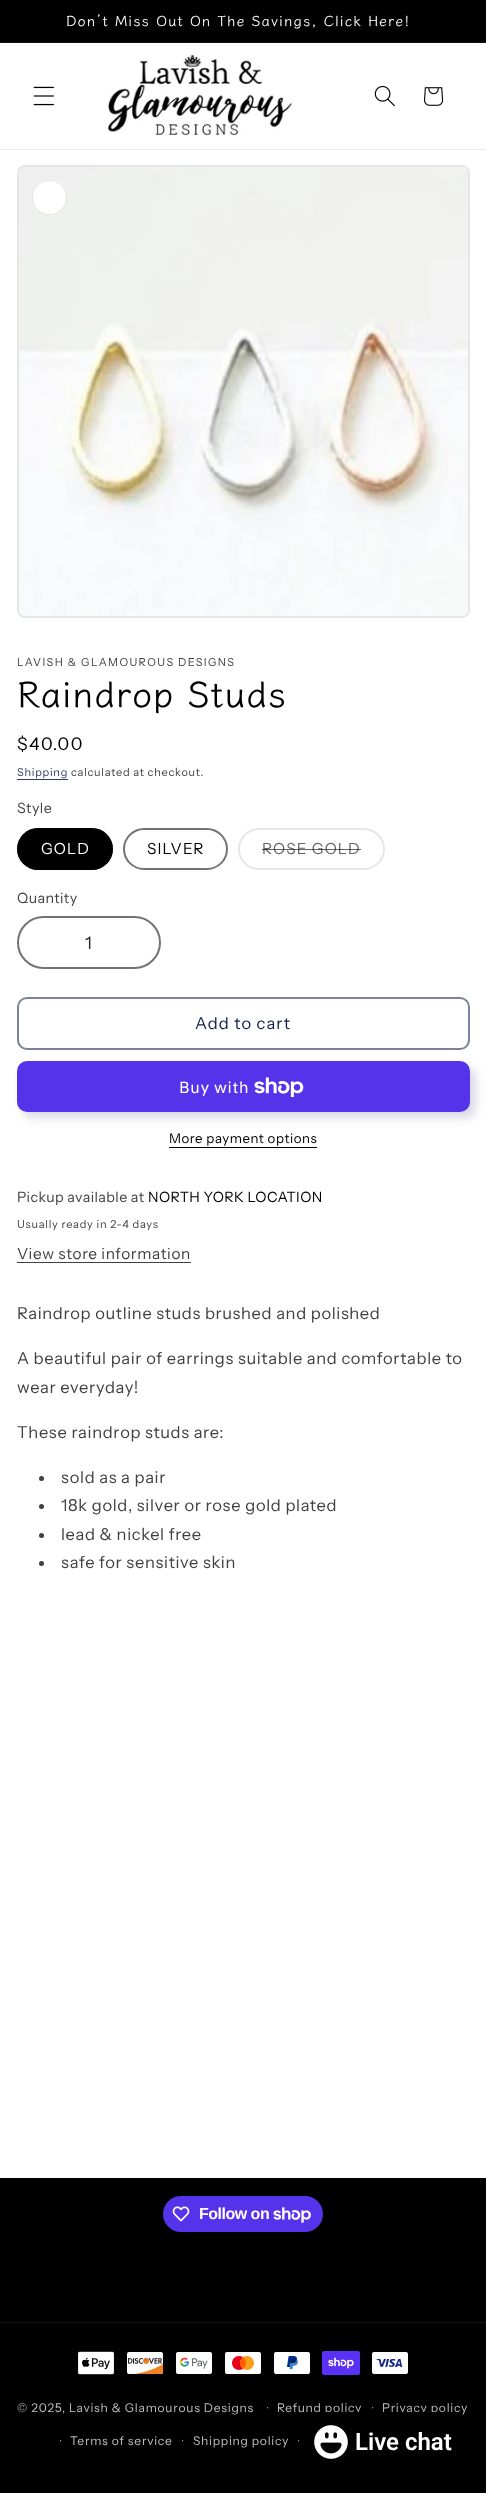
<svg xmlns="http://www.w3.org/2000/svg" width="486" height="2493" viewBox="0 0 486 2493">
  <defs>
    <filter id="blur1" x="-50%" y="-200%" width="200%" height="500%"><feGaussianBlur stdDeviation="5"/></filter>
    <filter id="blur2" x="-50%" y="-200%" width="200%" height="500%"><feGaussianBlur stdDeviation="2.5"/></filter>
  </defs>
  <rect width="100%" height="100%" fill="#ffffff"/>
  <rect x="0" y="0" width="486" height="42" fill="#000000"/>
  <rect x="0" y="42" width="486" height="1" fill="#141414"/>
  <text x="66" y="26" font-family="Klee One" font-size="14.4" font-weight="600" letter-spacing="1.1" fill="#ffffff">Don’t Miss Out On The Savings, Click Here!</text>
  <rect x="0" y="149" width="486" height="1" fill="#ebebeb"/>
  <image x="33" y="86" width="21" height="20" href="img1.png"/>
  <image x="108" y="54" width="185" height="82" href="img2.png"/>
  <image x="374" y="85" width="21" height="22" href="img3.png"/>
  <image x="424" y="87" width="20" height="19" href="img4.png"/>
  <rect x="18" y="166" width="451" height="451" rx="7" fill="none" stroke="#e6e6e6" stroke-width="2"/>
  <image x="19" y="167" width="449" height="449" href="img5.png"/>
  <circle cx="49.5" cy="197.5" r="17.5" fill="#ffffff"/>
  <circle cx="49.5" cy="197.5" r="17" fill="none" stroke="#000000" stroke-opacity="0.1"/>
  <text x="17" y="666" font-family="Instrument Sans" font-size="11" letter-spacing="1.4" fill="#404040">LAVISH &amp; GLAMOUROUS DESIGNS</text>
  <text x="17" y="707" font-family="Klee One" font-size="36" font-weight="600" letter-spacing="0.75" fill="#000000">Raindrop Studs</text>
  <text x="17" y="750" font-family="Instrument Sans" font-size="17.5" letter-spacing="1.4" fill="#000000">$40.00</text>
  <text x="17" y="776" font-family="Instrument Sans" font-size="11" letter-spacing="0.75" fill="#323d68">Shipping</text>
  <rect x="17" y="779" width="51" height="1" fill="#323d68"/>
  <text x="71" y="776" font-family="Instrument Sans" font-size="11" letter-spacing="0.75" fill="#404040">calculated at checkout.</text>
  <text x="17" y="813" font-family="Instrument Sans" font-size="14.25" letter-spacing="0.4" fill="#404040">Style</text>
  <rect x="17" y="828" width="96" height="42" rx="21" fill="#000000"/>
  <rect x="18" y="829" width="94" height="40" rx="20" fill="none" stroke="#000000" stroke-opacity="0.55" stroke-width="2"/>
  <text x="41" y="854" font-family="Instrument Sans" font-size="15.4" letter-spacing="1.1" fill="#ffffff">GOLD</text>
  <rect x="124" y="829" width="103" height="40" rx="20" fill="none" stroke="#737373" stroke-width="2"/>
  <text x="147" y="854" font-family="Instrument Sans" font-size="15.4" letter-spacing="1.1" fill="#000000">SILVER</text>
  <rect x="239" y="829" width="145" height="40" rx="20" fill="none" stroke="#e6e6e6" stroke-width="2"/>
  <text x="262" y="854" font-family="Instrument Sans" font-size="15.4" letter-spacing="1.1" fill="#666666">ROSE GOLD</text>
  <rect x="262" y="849" width="99" height="1" fill="#000000" fill-opacity="0.6"/>
  <text x="17" y="903" font-family="Instrument Sans" font-size="14.25" letter-spacing="0.4" fill="#404040">Quantity</text>
  <rect x="18" y="917" width="142" height="51" rx="25.5" fill="none" stroke="#737373" stroke-width="2"/>
  <text x="85" y="949" font-family="Instrument Sans" font-size="17.5" fill="#262626">1</text>
  <rect x="18" y="998" width="451" height="51" rx="9" fill="none" stroke="#7a829d" stroke-width="2"/>
  <text x="195" y="1029" font-family="Instrument Sans" font-size="16.5" letter-spacing="1.1" fill="#0e1b4d">Add to cart</text>
  <rect x="23" y="1067" width="453" height="51" rx="10" fill="#0e1b4d" fill-opacity="0.15" filter="url(#blur1)"/>
  <rect x="17" y="1061" width="453" height="51" rx="10" fill="#5433eb"/>
  <text x="179" y="1093" font-family="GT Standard" font-size="16" letter-spacing="0.65" fill="#ffffff">Buy with</text>
  <image x="254" y="1077" width="50" height="20" href="img6.png"/>
  <text x="169" y="1143" font-family="Instrument Sans" font-size="13.25" letter-spacing="0.55" fill="#000000">More payment options</text>
  <rect x="169" y="1147" width="148" height="1" fill="#000000"/>
  <text x="17" y="1202" font-family="Instrument Sans" font-size="14.25" letter-spacing="0.4" fill="#404040">Pickup available at</text>
  <text x="148" y="1202" font-family="Instrument Sans" font-size="14.25" letter-spacing="0.4" fill="#000000">NORTH YORK LOCATION</text>
  <text x="17" y="1228" font-family="Instrument Sans" font-size="11" letter-spacing="0.75" fill="#404040">Usually ready in 2-4 days</text>
  <text x="17" y="1259" font-family="Instrument Sans" font-size="15.4" letter-spacing="0.65" fill="#404040">View store information</text>
  <rect x="17" y="1262" width="174" height="1" fill="#404040"/>
  <text x="17" y="1319" font-family="Instrument Sans" font-size="16.5" letter-spacing="0.65" fill="#404040">Raindrop outline studs brushed and polished</text>
  <text x="17" y="1364" font-family="Instrument Sans" font-size="16.5" letter-spacing="0.65" fill="#404040">A beautiful pair of earrings suitable and comfortable to</text>
  <text x="17" y="1393" font-family="Instrument Sans" font-size="16.5" letter-spacing="0.65" fill="#404040">wear everyday!</text>
  <text x="17" y="1438" font-family="Instrument Sans" font-size="16.5" letter-spacing="0.65" fill="#404040">These raindrop studs are:</text>
  <circle cx="41.5" cy="1478.5" r="2.5" fill="#404040"/>
  <text x="61" y="1483" font-family="Instrument Sans" font-size="16.5" letter-spacing="0.65" fill="#404040">sold as a pair</text>
  <circle cx="41.5" cy="1506.5" r="2.5" fill="#404040"/>
  <text x="61" y="1511" font-family="Instrument Sans" font-size="16.5" letter-spacing="0.65" fill="#404040">18k gold, silver or rose gold plated</text>
  <circle cx="41.5" cy="1535.5" r="2.5" fill="#404040"/>
  <text x="61" y="1540" font-family="Instrument Sans" font-size="16.5" letter-spacing="0.65" fill="#404040">lead &amp; nickel free</text>
  <circle cx="41.5" cy="1563.5" r="2.5" fill="#404040"/>
  <text x="61" y="1568" font-family="Instrument Sans" font-size="16.5" letter-spacing="0.65" fill="#404040">safe for sensitive skin</text>
  <rect x="0" y="2178" width="486" height="315" fill="#000000"/>
  <rect x="163" y="2196" width="160" height="36" rx="18" fill="#5433eb"/>
  <image x="172" y="2206" width="18" height="16" href="img7.png"/>
  <text x="199" y="2219" font-family="Liberation Sans" font-size="16" font-weight="bold" letter-spacing="-0.5" fill="#ffffff">Follow on</text>
  <image x="273" y="2207" width="38" height="16" href="img8.png"/>
  <rect x="0" y="2322" width="486" height="1" fill="#141414"/>
  <image x="78" y="2351" width="36" height="24" href="img9.png"/>
  <image x="127" y="2352" width="37" height="22" href="img10.png"/>
  <image x="176" y="2352" width="36" height="22" href="img11.png"/>
  <image x="225" y="2352" width="36" height="22" href="img12.png"/>
  <image x="274" y="2352" width="36" height="22" href="img13.png"/>
  <image x="322" y="2351" width="38" height="24" href="img14.png"/>
  <image x="372" y="2352" width="36" height="22" href="img15.png"/>
  <text x="17" y="2412" font-family="Instrument Sans" font-size="12.1" letter-spacing="0.75" fill="#bfbfbf">© 2025, Lavish &amp; Glamourous Designs</text>
  <text x="267" y="2412" font-family="Instrument Sans" font-size="11" letter-spacing="0.75" fill="#bfbfbf">·</text>
  <text x="277" y="2412" font-family="Instrument Sans" font-size="12.1" letter-spacing="0.75" fill="#bfbfbf">Refund policy</text>
  <text x="372" y="2412" font-family="Instrument Sans" font-size="11" letter-spacing="0.75" fill="#bfbfbf">·</text>
  <text x="382" y="2412" font-family="Instrument Sans" font-size="12.1" letter-spacing="0.75" fill="#bfbfbf">Privacy policy</text>
  <text x="60" y="2445" font-family="Instrument Sans" font-size="11" letter-spacing="0.75" fill="#bfbfbf">·</text>
  <text x="70" y="2445" font-family="Instrument Sans" font-size="12.1" letter-spacing="0.75" fill="#bfbfbf">Terms of service</text>
  <text x="182" y="2445" font-family="Instrument Sans" font-size="11" letter-spacing="0.75" fill="#bfbfbf">·</text>
  <text x="193" y="2445" font-family="Instrument Sans" font-size="12.1" letter-spacing="0.75" fill="#bfbfbf">Shipping policy</text>
  <text x="298" y="2445" font-family="Instrument Sans" font-size="11" letter-spacing="0.75" fill="#bfbfbf">·</text>
  <rect x="304" y="2412" width="160" height="60" rx="16" fill="#000000" fill-opacity="0.15" filter="url(#blur2)"/>
  <rect x="304" y="2412" width="160" height="60" rx="16" fill="#000000"/>
  <image x="314" y="2425" width="34" height="34" href="img16.png"/>
  <text x="355" y="2450" font-family="Roboto" font-size="24" font-weight="600" fill="#ffffff">Live chat</text>
</svg>
